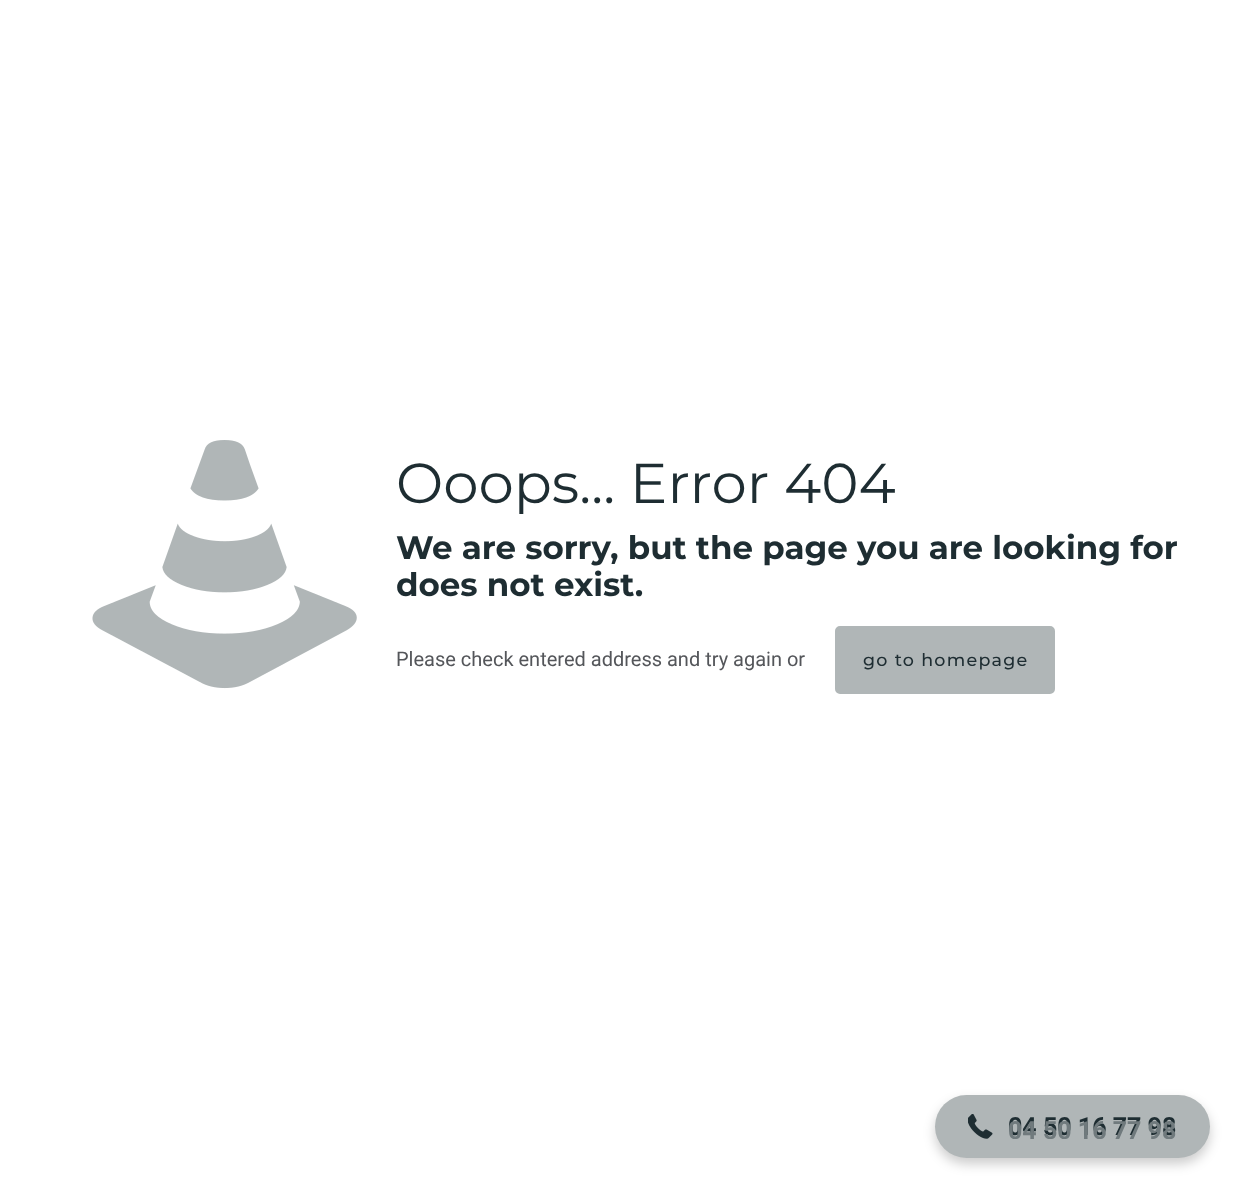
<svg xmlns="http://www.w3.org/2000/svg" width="1234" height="1182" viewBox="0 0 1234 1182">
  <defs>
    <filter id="blur1" x="-50%" y="-200%" width="200%" height="500%"><feGaussianBlur stdDeviation="6"/></filter>
    <clipPath id="clip1"><rect x="1008" y="1114" width="168" height="25"/></clipPath>
  </defs>
  <rect width="100%" height="100%" fill="#ffffff"/>
  <image x="92" y="440" width="265" height="249" href="img1.png"/>
  <text x="396" y="503" font-family="Montserrat" font-size="56.25" fill="#1e2d32">Ooops... Error 404</text>
  <text x="396" y="559" font-family="Montserrat" font-size="32.5" font-weight="bold" fill="#1e2d32">We are sorry, but the page you are looking for</text>
  <text x="396" y="596" font-family="Montserrat" font-size="32.5" font-weight="bold" fill="#1e2d32">does not exist.</text>
  <text x="396" y="666" font-family="Roboto" font-size="20" fill="#54565a">Please check entered address and try again or</text>
  <rect x="836.5" y="627.5" width="217" height="65" rx="3.5" fill="#b0b6b7" stroke="#b0b6b7" stroke-width="3"/>
  <text x="863" y="666" font-family="Montserrat" font-size="17.5" font-weight="500" letter-spacing="1.25" fill="#1e2d32">go to homepage</text>
  <rect x="935" y="1101" width="275" height="63" rx="31.5" fill="#000000" fill-opacity="0.2" filter="url(#blur1)"/>
  <rect x="935" y="1095" width="275" height="63" rx="31.5" fill="#b0b6b7"/>
  <image x="968" y="1114" width="25" height="25" href="img2.png"/>
  <text x="1008" y="1135" font-family="Roboto" font-size="25" font-weight="bold" fill="#1e2d32">04 50 16 77 98</text>
  <g clip-path="url(#clip1)">
    <text x="1008" y="1139" font-family="Roboto" font-size="25" font-weight="bold" fill="#707a7d">04 50 16 77 98</text>
  </g>
</svg>
